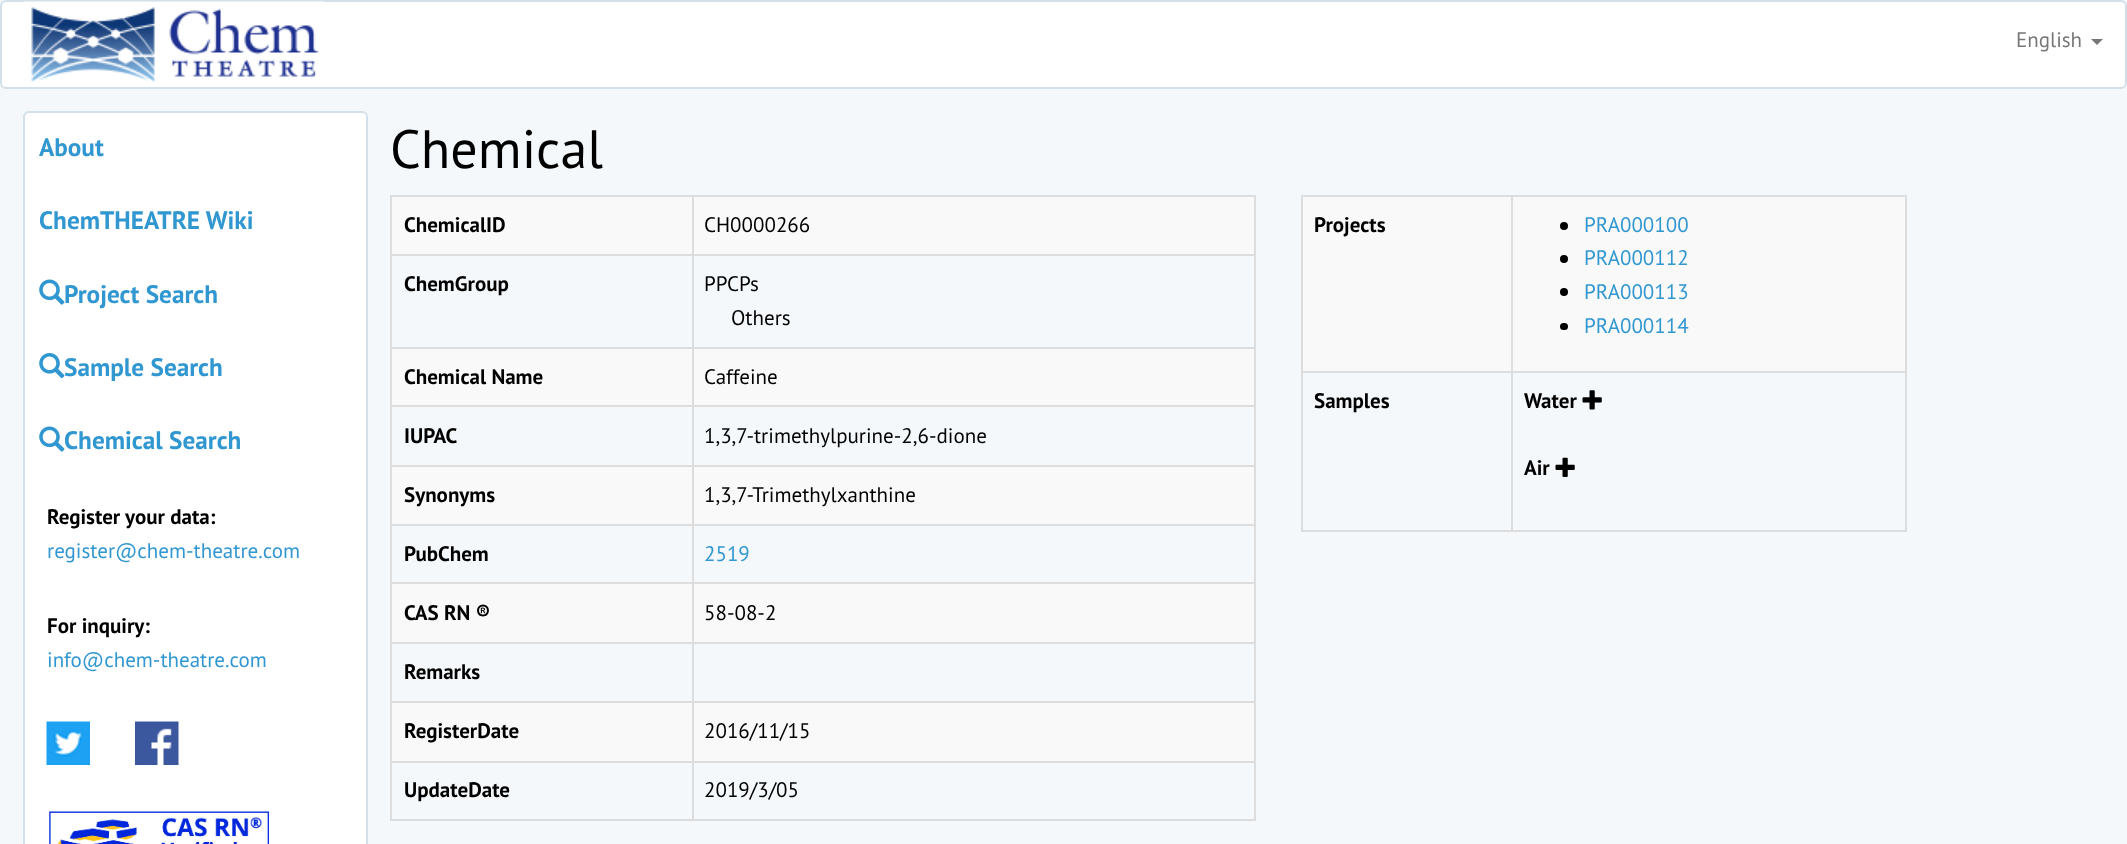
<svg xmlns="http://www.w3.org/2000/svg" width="2127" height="844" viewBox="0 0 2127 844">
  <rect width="100%" height="100%" fill="#f5f8fa"/>
  <rect x="1" y="1" width="2125" height="87" rx="5" fill="#ffffff" stroke="#d3e0e9" stroke-width="2"/>
  <image x="24" y="1" width="300" height="81" href="img1.png"/>
  <text x="2016" y="47" font-family="PT Sans" font-size="21" fill="#777777">English</text>
  <path d="M2091 39H2103L2097 45Z" fill="#777777"/>
  <rect x="24" y="112" width="343" height="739" rx="5" fill="#ffffff" stroke="#d3e0e9" stroke-width="2"/>
  <text x="39" y="156" font-family="PT Sans" font-size="25.25" font-weight="bold" fill="#3097d1">About</text>
  <text x="39" y="229" font-family="PT Sans" font-size="25.25" font-weight="bold" fill="#3097d1">ChemTHEATRE Wiki</text>
  <image x="39" y="279" width="26" height="26" href="img2.png"/>
  <text x="64" y="303" font-family="PT Sans" font-size="25.25" font-weight="bold" fill="#3097d1">Project Search</text>
  <text x="64" y="376" font-family="PT Sans" font-size="25.25" font-weight="bold" fill="#3097d1">Sample Search</text>
  <image x="39" y="353" width="26" height="26" href="img3.png"/>
  <image x="39" y="426" width="26" height="26" href="img2.png"/>
  <text x="64" y="449" font-family="PT Sans" font-size="25.25" font-weight="bold" fill="#3097d1">Chemical Search</text>
  <text x="47" y="524" font-family="PT Sans" font-size="21" font-weight="bold" fill="#000000">Register your data:</text>
  <text x="47" y="558" font-family="PT Sans" font-size="21" fill="#3097d1">register@chem-theatre.com</text>
  <text x="47" y="633" font-family="PT Sans" font-size="21" font-weight="bold" fill="#000000">For inquiry:</text>
  <text x="47" y="667" font-family="PT Sans" font-size="21" fill="#3097d1">info@chem-theatre.com</text>
  <image x="46" y="721" width="44" height="44" href="img4.png"/>
  <image x="135" y="721" width="44" height="44" href="img5.png"/>
  <image x="49" y="811" width="220" height="33" href="img6.png"/>
  <text x="390" y="168" font-family="PT Sans" font-size="54" fill="#000000">Chemical</text>
  <rect x="390" y="195" width="866" height="2" fill="#dddddd"/>
  <rect x="1254" y="195" width="2" height="626" fill="#dddddd"/>
  <rect x="390" y="819" width="866" height="2" fill="#dddddd"/>
  <rect x="390" y="195" width="2" height="626" fill="#dddddd"/>
  <rect x="392" y="197" width="862" height="57" fill="#f9f9f9"/>
  <text x="404" y="232" font-family="PT Sans" font-size="21" font-weight="bold" fill="#000000">ChemicalID</text>
  <rect x="692" y="254" width="564" height="2" fill="#dddddd"/>
  <rect x="692" y="347" width="564" height="2" fill="#dddddd"/>
  <rect x="392" y="349" width="862" height="56" fill="#f9f9f9"/>
  <rect x="692" y="405" width="564" height="2" fill="#dddddd"/>
  <rect x="692" y="465" width="564" height="2" fill="#dddddd"/>
  <rect x="392" y="467" width="862" height="57" fill="#f9f9f9"/>
  <rect x="692" y="524" width="564" height="2" fill="#dddddd"/>
  <rect x="692" y="582" width="564" height="2" fill="#dddddd"/>
  <rect x="392" y="584" width="862" height="58" fill="#f9f9f9"/>
  <rect x="692" y="642" width="564" height="2" fill="#dddddd"/>
  <rect x="692" y="701" width="564" height="2" fill="#dddddd"/>
  <rect x="392" y="703" width="862" height="58" fill="#f9f9f9"/>
  <rect x="692" y="761" width="564" height="2" fill="#dddddd"/>
  <rect x="692" y="761" width="2" height="60" fill="#dddddd"/>
  <rect x="390" y="761" width="303" height="2" fill="#dddddd"/>
  <rect x="692" y="701" width="2" height="61" fill="#dddddd"/>
  <rect x="390" y="701" width="303" height="2" fill="#dddddd"/>
  <rect x="692" y="642" width="2" height="60" fill="#dddddd"/>
  <rect x="390" y="642" width="303" height="2" fill="#dddddd"/>
  <rect x="692" y="582" width="2" height="62" fill="#dddddd"/>
  <rect x="390" y="582" width="303" height="2" fill="#dddddd"/>
  <rect x="692" y="524" width="2" height="60" fill="#dddddd"/>
  <rect x="390" y="524" width="303" height="2" fill="#dddddd"/>
  <rect x="692" y="465" width="2" height="60" fill="#dddddd"/>
  <rect x="390" y="465" width="303" height="2" fill="#dddddd"/>
  <rect x="692" y="405" width="2" height="62" fill="#dddddd"/>
  <rect x="390" y="405" width="303" height="2" fill="#dddddd"/>
  <rect x="692" y="347" width="2" height="60" fill="#dddddd"/>
  <rect x="390" y="347" width="303" height="2" fill="#dddddd"/>
  <rect x="692" y="254" width="2" height="94" fill="#dddddd"/>
  <rect x="390" y="254" width="303" height="2" fill="#dddddd"/>
  <rect x="692" y="195" width="2" height="60" fill="#dddddd"/>
  <text x="704" y="232" font-family="PT Sans" font-size="21" fill="#000000">CH0000266</text>
  <text x="404" y="291" font-family="PT Sans" font-size="21" font-weight="bold" fill="#000000">ChemGroup</text>
  <text x="704" y="291" font-family="PT Sans" font-size="21" fill="#000000">PPCPs</text>
  <text x="731" y="325" font-family="PT Sans" font-size="21" fill="#000000">Others</text>
  <text x="404" y="384" font-family="PT Sans" font-size="21" font-weight="bold" fill="#000000">Chemical Name</text>
  <text x="704" y="384" font-family="PT Sans" font-size="21" fill="#000000">Caffeine</text>
  <text x="404" y="443" font-family="PT Sans" font-size="21" font-weight="bold" fill="#000000">IUPAC</text>
  <text x="704" y="443" font-family="PT Sans" font-size="21" fill="#000000">1,3,7-trimethylpurine-2,6-dione</text>
  <text x="404" y="502" font-family="PT Sans" font-size="21" font-weight="bold" fill="#000000">Synonyms</text>
  <text x="704" y="502" font-family="PT Sans" font-size="21" fill="#000000">1,3,7-Trimethylxanthine</text>
  <text x="404" y="561" font-family="PT Sans" font-size="21" font-weight="bold" fill="#000000">PubChem</text>
  <text x="704" y="561" font-family="PT Sans" font-size="21" fill="#3097d1">2519</text>
  <text x="404" y="620" font-family="PT Sans" font-size="21" font-weight="bold" fill="#000000">CAS RN ®</text>
  <text x="704" y="620" font-family="PT Sans" font-size="21" fill="#000000">58-08-2</text>
  <text x="404" y="679" font-family="PT Sans" font-size="21" font-weight="bold" fill="#000000">Remarks</text>
  <text x="404" y="738" font-family="PT Sans" font-size="21" font-weight="bold" fill="#000000">RegisterDate</text>
  <text x="704" y="738" font-family="PT Sans" font-size="21" fill="#000000">2016/11/15</text>
  <text x="404" y="797" font-family="PT Sans" font-size="21" font-weight="bold" fill="#000000">UpdateDate</text>
  <text x="704" y="797" font-family="PT Sans" font-size="21" fill="#000000">2019/3/05</text>
  <rect x="1301" y="195" width="606" height="2" fill="#dddddd"/>
  <rect x="1905" y="195" width="2" height="336" fill="#dddddd"/>
  <rect x="1301" y="530" width="606" height="2" fill="#dddddd"/>
  <rect x="1301" y="195" width="2" height="336" fill="#dddddd"/>
  <rect x="1303" y="197" width="602" height="174" fill="#f9f9f9"/>
  <text x="1314" y="232" font-family="PT Sans" font-size="21" font-weight="bold" fill="#000000">Projects</text>
  <rect x="1511" y="371" width="396" height="2" fill="#dddddd"/>
  <rect x="1511" y="371" width="2" height="160" fill="#dddddd"/>
  <rect x="1301" y="371" width="211" height="2" fill="#dddddd"/>
  <rect x="1511" y="195" width="2" height="177" fill="#dddddd"/>
  <circle cx="1564" cy="226" r="4" fill="#000000"/>
  <text x="1584" y="232" font-family="PT Sans" font-size="21" fill="#3097d1">PRA000100</text>
  <circle cx="1564" cy="259" r="4" fill="#000000"/>
  <text x="1584" y="265" font-family="PT Sans" font-size="21" fill="#3097d1">PRA000112</text>
  <circle cx="1564" cy="292" r="4" fill="#000000"/>
  <text x="1584" y="299" font-family="PT Sans" font-size="21" fill="#3097d1">PRA000113</text>
  <rect x="1560" y="323" width="8" height="7" rx="3.5" fill="#000000"/>
  <text x="1584" y="333" font-family="PT Sans" font-size="21" fill="#3097d1">PRA000114</text>
  <text x="1314" y="408" font-family="PT Sans" font-size="21" font-weight="bold" fill="#000000">Samples</text>
  <text x="1524" y="408" font-family="PT Sans" font-size="21" font-weight="bold" fill="#000000">Water</text>
  <image x="1582" y="390" width="20" height="20" href="img7.png"/>
  <text x="1524" y="475" font-family="PT Sans" font-size="21" font-weight="bold" fill="#000000">Air</text>
  <image x="1555" y="457" width="20" height="20" href="img8.png"/>
</svg>
